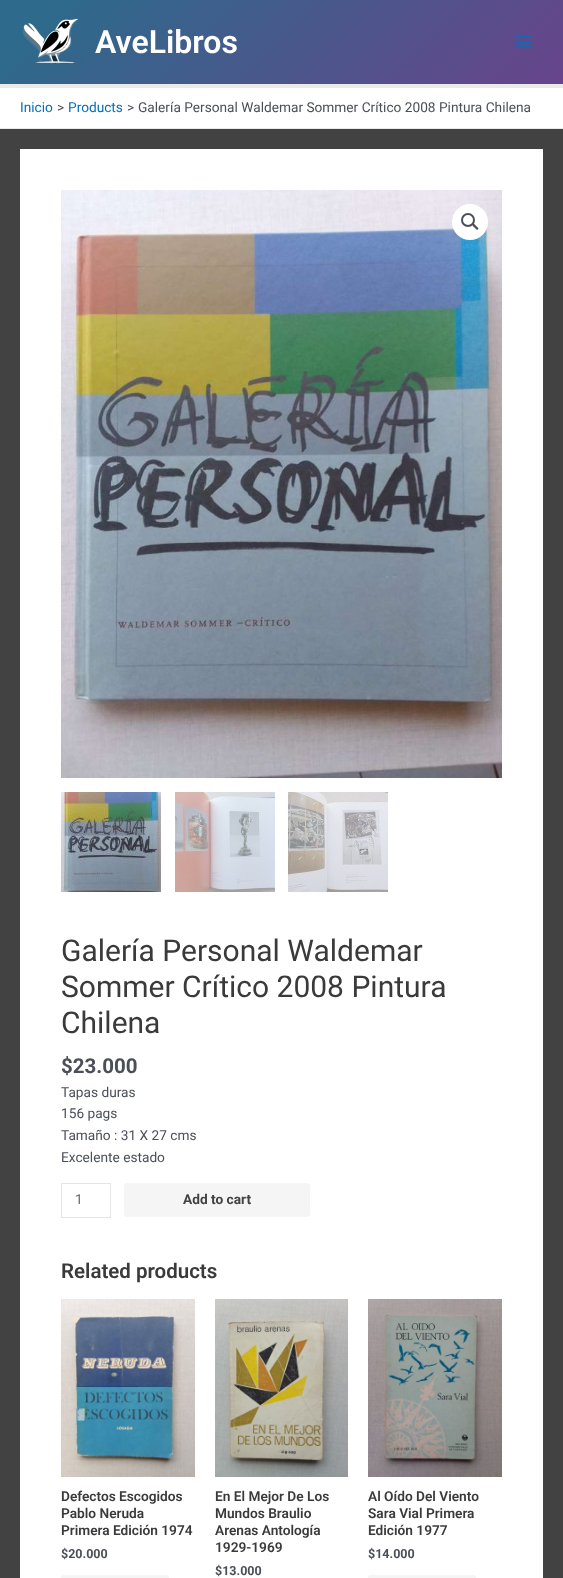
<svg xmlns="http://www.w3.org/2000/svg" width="563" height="1578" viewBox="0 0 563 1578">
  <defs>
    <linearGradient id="g1" gradientUnits="userSpaceOnUse" x1="120" y1="-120" x2="443" y2="204"><stop offset="0.09" stop-color="#2d6a8b"/><stop offset="1" stop-color="#68448c"/></linearGradient>
  </defs>
  <rect width="100%" height="100%" fill="#424242"/>
  <rect x="0" y="0" width="563" height="84" fill="url(#g1)"/>
  <rect x="0" y="84" width="563" height="4" fill="#eaeaea"/>
  <image x="22" y="18" width="59" height="53" href="img1.png"/>
  <text x="95" y="53" font-family="Roboto" font-size="32" font-weight="600" fill="#fefefe">AveLibros</text>
  <image x="514" y="36" width="18" height="12" href="img2.png"/>
  <rect x="0" y="88" width="563" height="40" fill="#ffffff"/>
  <rect x="0" y="128" width="563" height="1" fill="#eaeaea"/>
  <text x="20" y="112" font-family="Roboto" font-size="13.7" fill="#0170b9">Inicio</text>
  <text x="57" y="112" font-family="Roboto" font-size="13.7" fill="#4b4f58">&gt;</text>
  <text x="68" y="112" font-family="Roboto" font-size="13.7" fill="#0170b9">Products</text>
  <text x="127" y="112" font-family="Roboto" font-size="13.7" fill="#4b4f58">&gt;</text>
  <text x="138" y="112" font-family="Roboto" font-size="13.7" fill="#4b4f58">Galería Personal Waldemar Sommer Crítico 2008 Pintura Chilena</text>
  <rect x="20" y="149" width="523" height="1429" fill="#ffffff"/>
  <image x="61" y="190" width="441" height="588" href="img3.png"/>
  <circle cx="470" cy="222" r="18" fill="#ffffff"/>
  <circle cx="468" cy="220" r="6" fill="none" stroke="#4b4f58" stroke-width="2"/>
  <path d="M472.5 224C473.5 222.5 475.5 225.5 476 226C476.5 226.5 479.5 228.5 478 229.5C477 230.5 475 228 474.5 227.5C474 227 471.5 225 472.5 224Z" fill="#4b4f58"/>
  <image x="61" y="792" width="100" height="100" href="img4.png"/>
  <image x="175" y="792" width="100" height="100" href="img5.png"/>
  <image x="288" y="792" width="100" height="100" href="img6.png"/>
  <text x="61" y="961" font-family="Roboto" font-size="30" fill="#3a3a3a">Galería Personal Waldemar</text>
  <text x="61" y="997" font-family="Roboto" font-size="30" fill="#3a3a3a">Sommer Crítico 2008 Pintura</text>
  <text x="61" y="1033" font-family="Roboto" font-size="30" fill="#3a3a3a">Chilena</text>
  <text x="61" y="1073" font-family="Roboto" font-size="20.5" font-weight="bold" fill="#4b4f58">$23.000</text>
  <text x="61" y="1097" font-family="Roboto" font-size="13.7" fill="#4b4f58">Tapas duras</text>
  <text x="61" y="1118" font-family="Roboto" font-size="13.7" fill="#4b4f58">156 pags</text>
  <text x="61" y="1140" font-family="Roboto" font-size="13.7" fill="#4b4f58">Tamaño : 31 X 27 cms</text>
  <text x="61" y="1162" font-family="Roboto" font-size="13.7" fill="#4b4f58">Excelente estado</text>
  <rect x="61.5" y="1183.5" width="49" height="34" fill="none" stroke="#e5e5e5"/>
  <text x="75" y="1204" font-family="Roboto" font-size="13.7" fill="#666666">1</text>
  <rect x="124" y="1183" width="186" height="34" rx="3" fill="#f5f5f5"/>
  <text x="183" y="1204" font-family="Roboto" font-size="13.7" font-weight="bold" fill="#424242">Add to cart</text>
  <text x="61" y="1278" font-family="Roboto" font-size="20.5" font-weight="600" fill="#3a3a3a">Related products</text>
  <image x="61" y="1299" width="134" height="178" href="img7.png"/>
  <text x="61" y="1501" font-family="Roboto" font-size="13.7" font-weight="600" fill="#3a3a3a">Defectos Escogidos</text>
  <text x="61" y="1518" font-family="Roboto" font-size="13.7" font-weight="600" fill="#3a3a3a">Pablo Neruda</text>
  <text x="61" y="1535" font-family="Roboto" font-size="13.7" font-weight="600" fill="#3a3a3a">Primera Edición 1974</text>
  <text x="61" y="1558" font-family="Roboto" font-size="12.5" font-weight="bold" fill="#4b4f58">$20.000</text>
  <rect x="61" y="1575" width="108" height="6" rx="3" fill="#f5f5f5"/>
  <image x="215" y="1299" width="133" height="178" href="img8.png"/>
  <text x="215" y="1501" font-family="Roboto" font-size="13.7" font-weight="600" fill="#3a3a3a">En El Mejor De Los</text>
  <text x="215" y="1518" font-family="Roboto" font-size="13.7" font-weight="600" fill="#3a3a3a">Mundos Braulio</text>
  <text x="215" y="1535" font-family="Roboto" font-size="13.7" font-weight="600" fill="#3a3a3a">Arenas Antología</text>
  <text x="215" y="1552" font-family="Roboto" font-size="13.7" font-weight="600" fill="#3a3a3a">1929-1969</text>
  <text x="215" y="1575" font-family="Roboto" font-size="12.5" font-weight="bold" fill="#4b4f58">$13.000</text>
  <image x="368" y="1299" width="134" height="178" href="img9.png"/>
  <text x="368" y="1501" font-family="Roboto" font-size="13.7" font-weight="600" fill="#3a3a3a">Al Oído Del Viento</text>
  <text x="368" y="1518" font-family="Roboto" font-size="13.7" font-weight="600" fill="#3a3a3a">Sara Vial Primera</text>
  <text x="368" y="1535" font-family="Roboto" font-size="13.7" font-weight="600" fill="#3a3a3a">Edición 1977</text>
  <text x="368" y="1558" font-family="Roboto" font-size="12.5" font-weight="bold" fill="#4b4f58">$14.000</text>
  <rect x="368" y="1575" width="108" height="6" rx="3" fill="#f5f5f5"/>
</svg>
